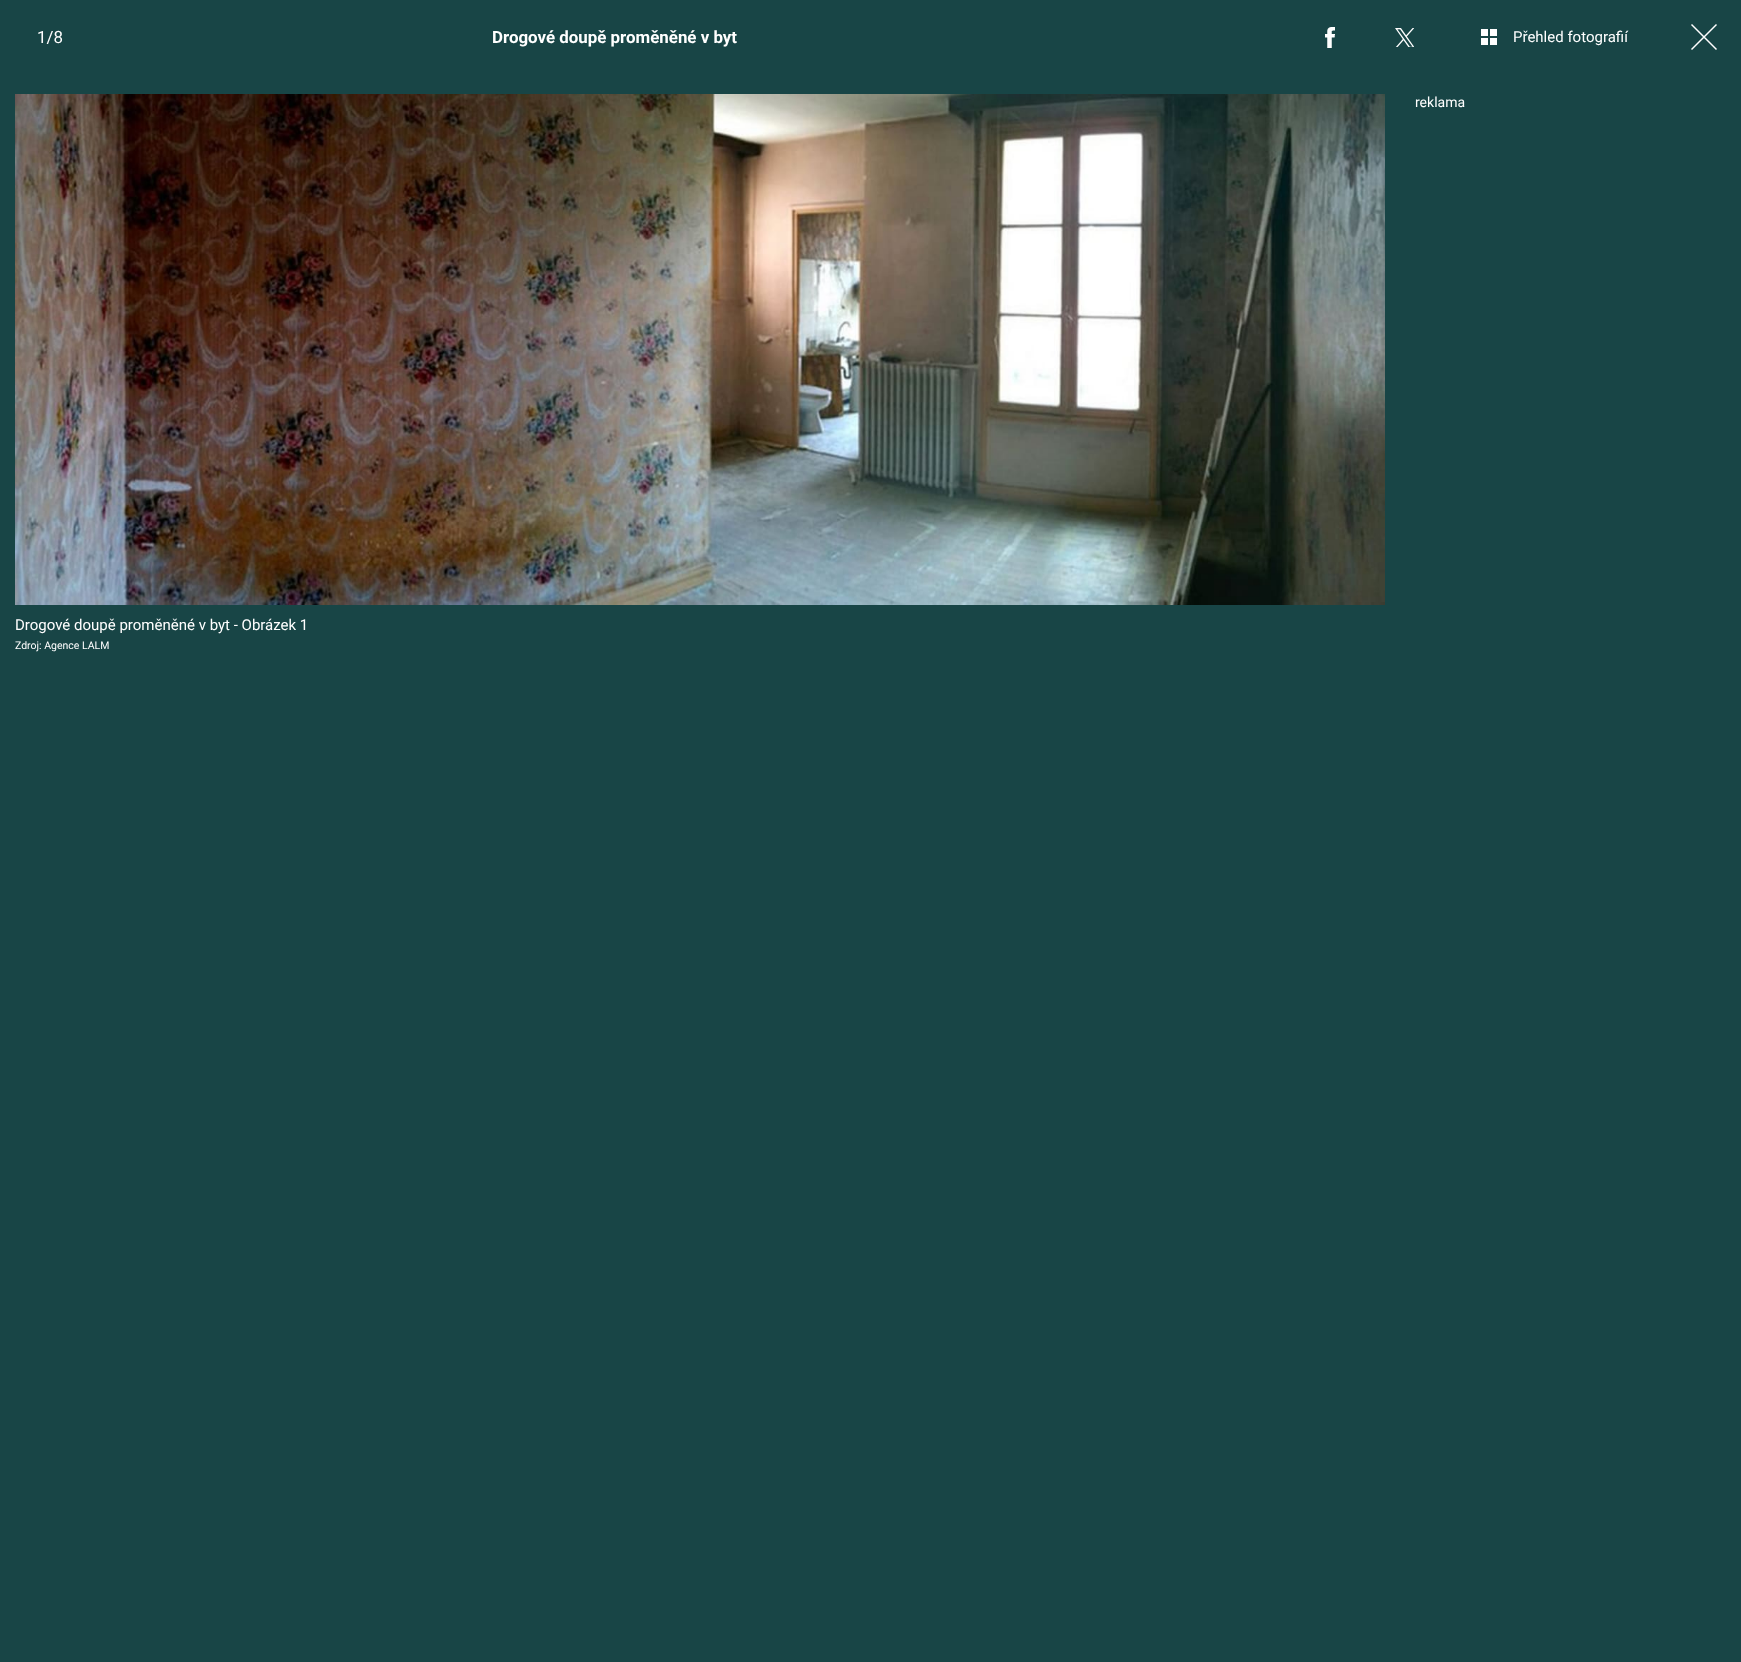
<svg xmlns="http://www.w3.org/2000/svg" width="1741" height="1662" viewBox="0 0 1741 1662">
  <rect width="100%" height="100%" fill="#184546"/>
  <text x="37" y="43" font-family="Roboto" font-size="16.9" fill="#ffffff">1/8</text>
  <text x="492" y="43" font-family="Roboto" font-size="16.9" font-weight="bold" fill="#ffffff">Drogové doupě proměněné v byt</text>
  <image x="1325" y="27" width="10" height="21" href="img1.png"/>
  <image x="1395" y="28" width="19" height="19" href="img2.png"/>
  <image x="1481" y="29" width="16" height="16" href="img3.png"/>
  <text x="1513" y="42" font-family="Roboto" font-size="15" fill="#ffffff">Přehled fotografií</text>
  <path d="M1691.5 24.5L1716.5 49.5M1716.5 24.5L1691.5 49.5" fill="none" stroke="#ffffff" stroke-width="1.5"/>
  <text x="1415" y="107" font-family="Roboto" font-size="14" fill="#ffffff">reklama</text>
  <image x="15" y="94" width="1370" height="511" href="img4.png"/>
  <text x="15" y="630" font-family="Roboto" font-size="15" fill="#ffffff">Drogové doupě proměněné v byt - Obrázek 1</text>
  <text x="15" y="649" font-family="Roboto" font-size="10.5" fill="#ffffff">Zdroj: Agence LALM</text>
</svg>
